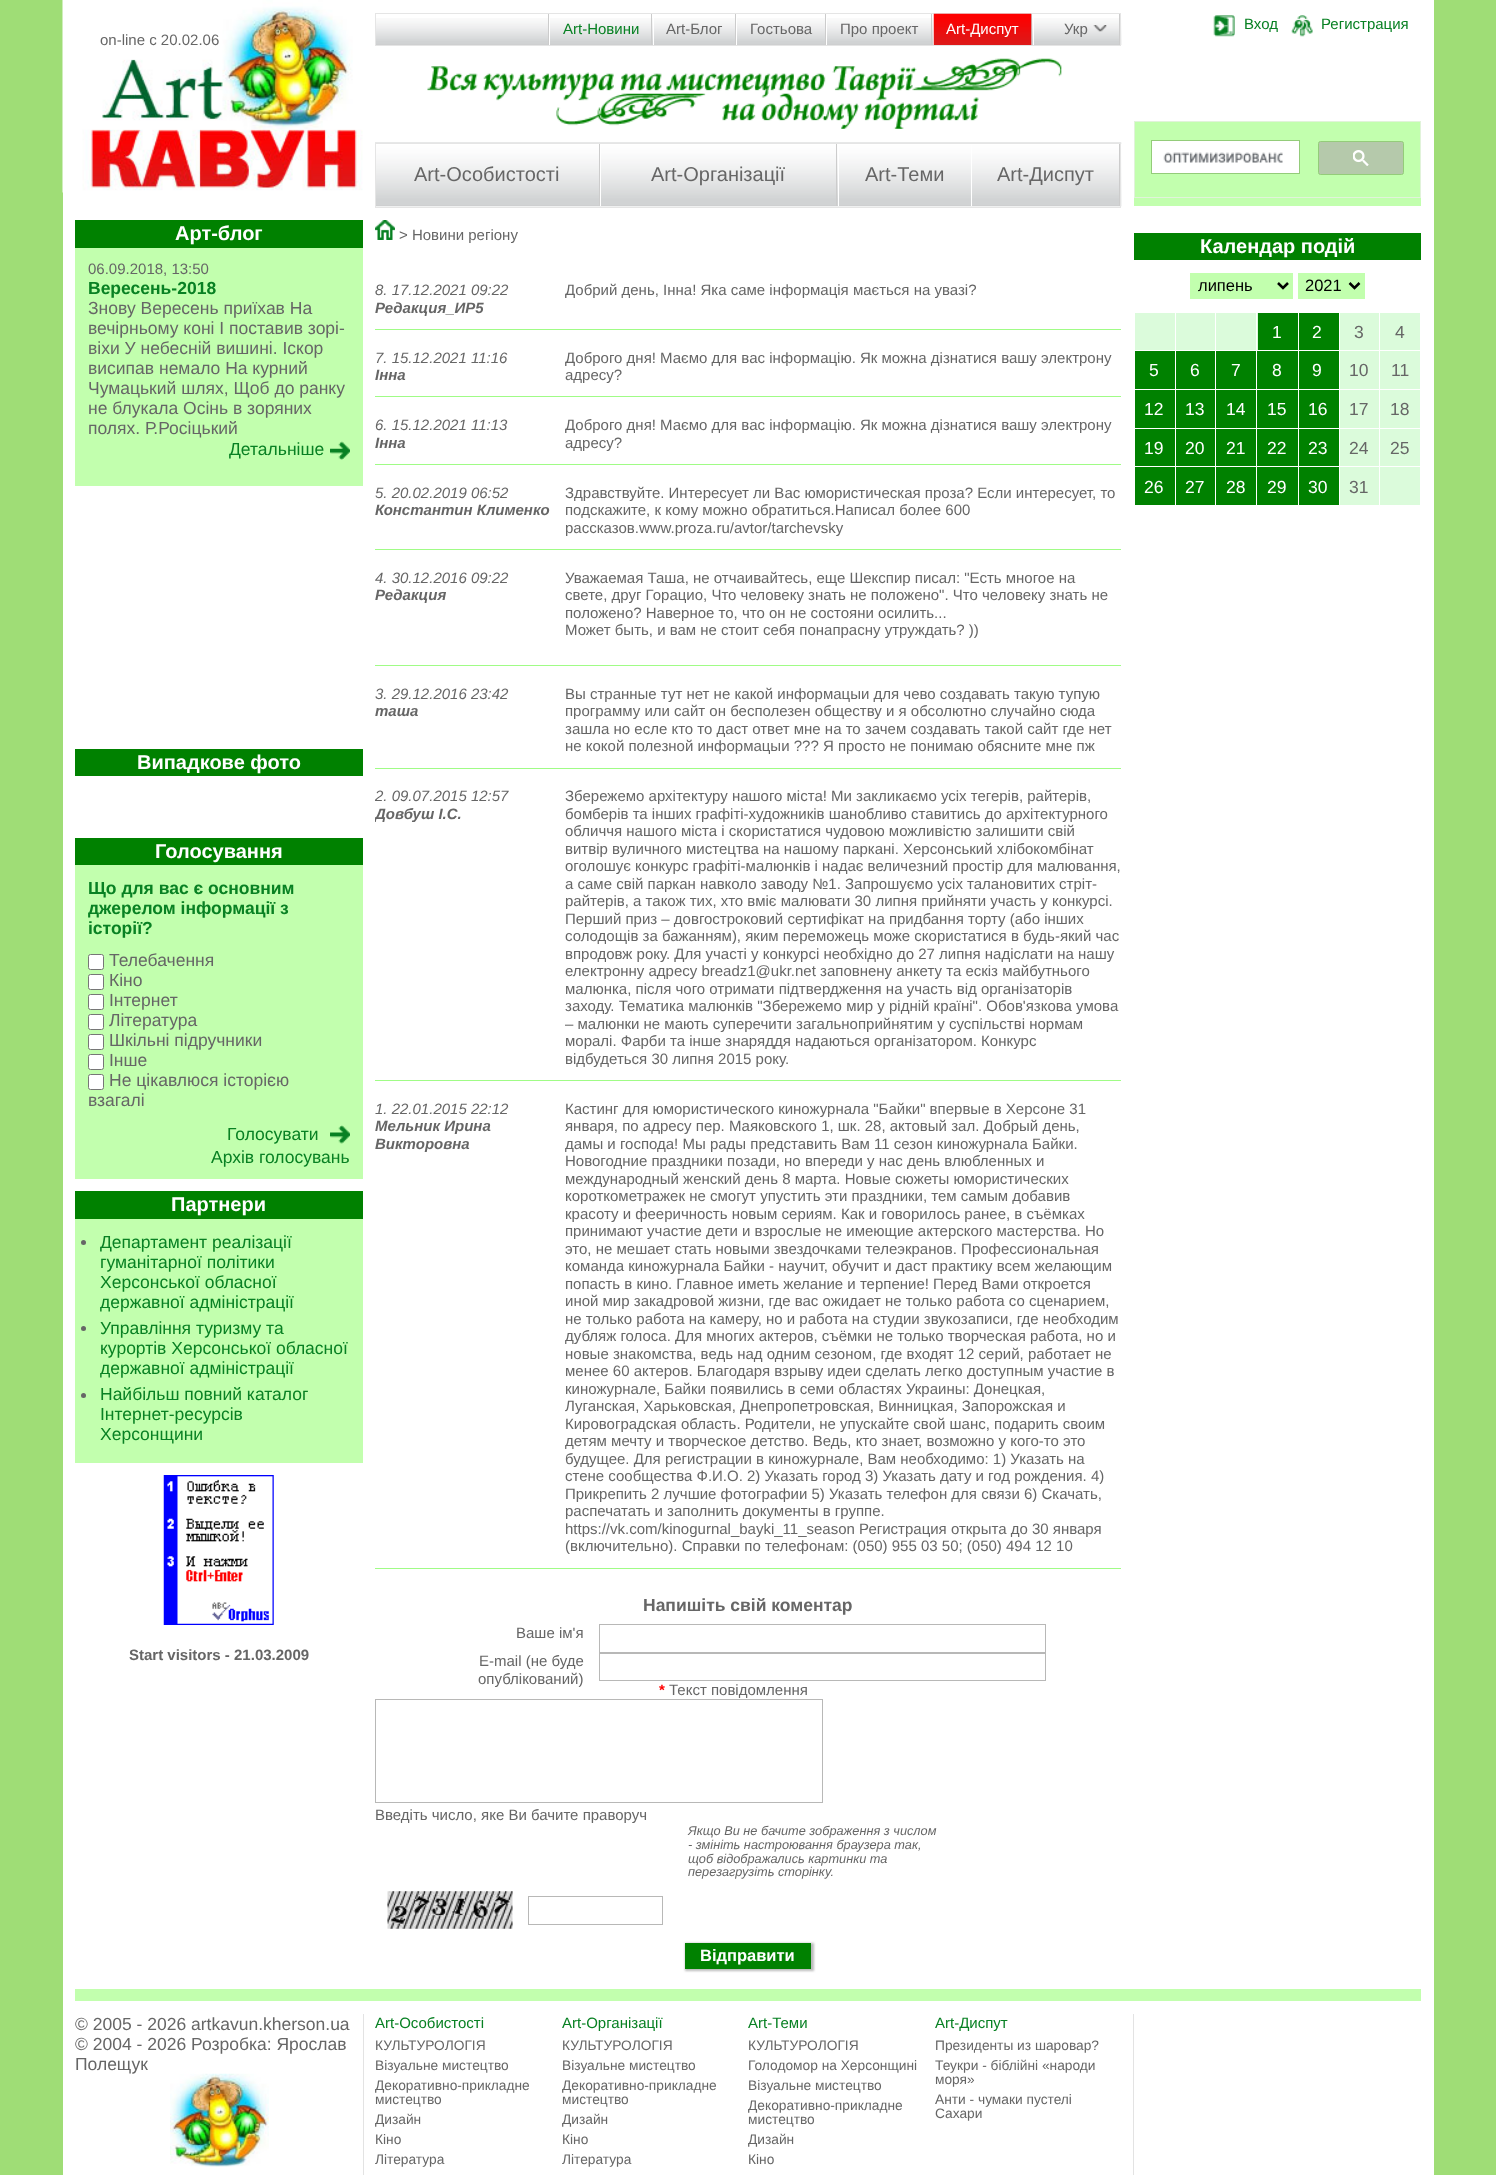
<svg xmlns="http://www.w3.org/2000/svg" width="1496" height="2175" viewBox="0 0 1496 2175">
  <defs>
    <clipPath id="clip1"><rect x="375" y="788" width="746" height="292"/></clipPath>
    <filter id="blur1" x="-50%" y="-200%" width="200%" height="500%"><feGaussianBlur stdDeviation="1"/></filter>
  </defs>
  <rect width="100%" height="100%" fill="#9fdd76"/>
  <rect x="63" y="0" width="1371" height="2175" fill="#ffffff"/>
  <image x="62" y="0" width="301" height="193" href="img1.png"/>
  <text x="100" y="45" font-family="Liberation Sans" font-size="15" fill="#666666">on-line с 20.02.06</text>
  <image x="427" y="58" width="635" height="71" href="img2.png"/>
  <image x="376" y="18" width="746" height="27" href="img3.png"/>
  <rect x="375.5" y="13.5" width="745" height="32" fill="none" stroke="#e5e5e5"/>
  <rect x="548" y="14" width="1" height="31" fill="#cccccc"/>
  <rect x="651" y="14" width="1" height="31" fill="#cccccc"/>
  <rect x="549" y="14" width="1" height="31" fill="#ffffff"/>
  <text x="563" y="34" font-family="Liberation Sans" font-size="15" fill="#088123">Art-Новини</text>
  <rect x="735" y="14" width="1" height="31" fill="#cccccc"/>
  <rect x="653" y="14" width="1" height="31" fill="#ffffff"/>
  <text x="666" y="34" font-family="Liberation Sans" font-size="15" fill="#666666">Art-Блог</text>
  <rect x="825" y="14" width="1" height="31" fill="#cccccc"/>
  <rect x="736" y="14" width="1" height="31" fill="#ffffff"/>
  <text x="750" y="34" font-family="Liberation Sans" font-size="15" fill="#666666">Гостьова</text>
  <rect x="931" y="14" width="1" height="31" fill="#cccccc"/>
  <rect x="826" y="14" width="1" height="31" fill="#ffffff"/>
  <text x="840" y="34" font-family="Liberation Sans" font-size="15" fill="#666666">Про проект</text>
  <rect x="1031" y="14" width="1" height="31" fill="#cccccc"/>
  <rect x="933" y="14" width="1" height="31" fill="#ffffff"/>
  <image x="933" y="13" width="99" height="32" href="img4.png"/>
  <text x="946" y="34" font-family="Liberation Sans" font-size="15" fill="#ffffff">Art-Диспут</text>
  <rect x="1119" y="14" width="1" height="31" fill="#cccccc"/>
  <rect x="1033" y="14" width="1" height="31" fill="#ffffff"/>
  <text x="1064" y="34" font-family="Liberation Sans" font-size="15" fill="#666666">Укр</text>
  <image x="1093" y="25" width="14" height="7" href="img5.png"/>
  <image x="375" y="142" width="747" height="65" href="img6.png"/>
  <rect x="375.5" y="143.5" width="745" height="64" fill="none" stroke="#e5e5e5"/>
  <rect x="599" y="144" width="1" height="62" fill="#cccccc"/>
  <text x="414" y="181" font-family="Liberation Sans" font-size="20" fill="#666666">Art-Особистості</text>
  <rect x="836" y="144" width="1" height="62" fill="#cccccc"/>
  <rect x="600" y="144" width="1" height="62" fill="#ffffff"/>
  <text x="651" y="181" font-family="Liberation Sans" font-size="20" fill="#666666">Art-Організації</text>
  <rect x="838" y="144" width="1" height="62" fill="#ffffff"/>
  <text x="865" y="181" font-family="Liberation Sans" font-size="20" fill="#666666">Art-Теми</text>
  <rect x="1119" y="144" width="1" height="62" fill="#cccccc"/>
  <rect x="971" y="144" width="1" height="62" fill="#ffffff"/>
  <text x="997" y="181" font-family="Liberation Sans" font-size="20" fill="#666666">Art-Диспут</text>
  <image x="1213" y="15" width="22" height="22" href="img7.png"/>
  <text x="1244" y="29" font-family="Liberation Sans" font-size="15" fill="#088123">Вход</text>
  <image x="1291" y="15" width="22" height="22" href="img8.png"/>
  <text x="1321" y="29" font-family="Liberation Sans" font-size="15" fill="#088123">Регистрация</text>
  <rect x="1134" y="122" width="287" height="84" fill="#c2ffae"/>
  <rect x="1134.5" y="121.5" width="286" height="76" fill="none" stroke="#e1f3da"/>
  <rect x="1151.5" y="140.5" width="148" height="33" fill="#ffffff" stroke="#94cc7a"/>
  <image x="1163" y="152" width="120" height="11" href="img9.png"/>
  <rect x="1318.5" y="141.5" width="85" height="33" rx="2" fill="#b5c9ab" stroke="#94cc7a"/>
  <image x="1353" y="150" width="16" height="16" href="img10.png"/>
  <rect x="75" y="220" width="288" height="28" fill="#008100"/>
  <text x="175" y="240" font-family="Liberation Sans" font-size="20" font-weight="bold" fill="#ffffff">Арт-блог</text>
  <rect x="75" y="248" width="288" height="238" fill="#c2ffae"/>
  <text x="88" y="274" font-family="Liberation Sans" font-size="15" fill="#666666">06.09.2018, 13:50</text>
  <text x="88" y="294" font-family="Liberation Sans" font-size="17.5" font-weight="bold" fill="#088123">Вересень-2018</text>
  <text x="88" y="314" font-family="Liberation Sans" font-size="17.5" fill="#666666">Знову Вересень приїхав На</text>
  <text x="88" y="334" font-family="Liberation Sans" font-size="17.5" fill="#666666">вечірньому коні І поставив зорі-</text>
  <text x="88" y="354" font-family="Liberation Sans" font-size="17.5" fill="#666666">віхи У небесній вишині. Іскор</text>
  <text x="88" y="374" font-family="Liberation Sans" font-size="17.5" fill="#666666">висипав немало На курний</text>
  <text x="88" y="394" font-family="Liberation Sans" font-size="17.5" fill="#666666">Чумацький шлях, Щоб до ранку</text>
  <text x="88" y="414" font-family="Liberation Sans" font-size="17.5" fill="#666666">не блукала Осінь в зоряних</text>
  <text x="88" y="434" font-family="Liberation Sans" font-size="17.5" fill="#666666">полях. Р.Росіцький</text>
  <text x="229" y="455" font-family="Liberation Sans" font-size="17.5" fill="#088123">Детальніше</text>
  <image x="330" y="441" width="20" height="19" href="img11.png"/>
  <rect x="75" y="749" width="288" height="27" fill="#008100"/>
  <text x="137" y="769" font-family="Liberation Sans" font-size="20" font-weight="bold" fill="#ffffff">Випадкове фото</text>
  <rect x="75" y="838" width="288" height="27" fill="#008100"/>
  <text x="155" y="858" font-family="Liberation Sans" font-size="20" font-weight="bold" fill="#ffffff">Голосування</text>
  <rect x="75" y="865" width="288" height="314" fill="#c2ffae"/>
  <text x="88" y="894" font-family="Liberation Sans" font-size="17.5" font-weight="bold" fill="#088123">Що для вас є основним</text>
  <text x="88" y="914" font-family="Liberation Sans" font-size="17.5" font-weight="bold" fill="#088123">джерелом інформації з</text>
  <text x="88" y="934" font-family="Liberation Sans" font-size="17.5" font-weight="bold" fill="#088123">історії?</text>
  <rect x="88.5" y="954.5" width="15" height="15" rx="2" fill="#ffffff" stroke="#767676"/>
  <text x="109" y="966" font-family="Liberation Sans" font-size="17.5" fill="#666666">Телебачення</text>
  <rect x="88.5" y="974.5" width="15" height="15" rx="2" fill="#ffffff" stroke="#767676"/>
  <text x="109" y="986" font-family="Liberation Sans" font-size="17.5" fill="#666666">Кіно</text>
  <rect x="88.5" y="994.5" width="15" height="15" rx="2" fill="#ffffff" stroke="#767676"/>
  <text x="109" y="1006" font-family="Liberation Sans" font-size="17.5" fill="#666666">Інтернет</text>
  <rect x="88.5" y="1014.5" width="15" height="15" rx="2" fill="#ffffff" stroke="#767676"/>
  <text x="109" y="1026" font-family="Liberation Sans" font-size="17.5" fill="#666666">Література</text>
  <rect x="88.5" y="1034.5" width="15" height="15" rx="2" fill="#ffffff" stroke="#767676"/>
  <text x="109" y="1046" font-family="Liberation Sans" font-size="17.5" fill="#666666">Шкільні підручники</text>
  <rect x="88.5" y="1054.5" width="15" height="15" rx="2" fill="#ffffff" stroke="#767676"/>
  <text x="109" y="1066" font-family="Liberation Sans" font-size="17.5" fill="#666666">Інше</text>
  <rect x="88.5" y="1074.5" width="15" height="15" rx="2" fill="#ffffff" stroke="#767676"/>
  <text x="109" y="1086" font-family="Liberation Sans" font-size="17.5" fill="#666666">Не цікавлюся історією</text>
  <text x="88" y="1106" font-family="Liberation Sans" font-size="17.5" fill="#666666">взагалі</text>
  <text x="227" y="1140" font-family="Liberation Sans" font-size="17.5" fill="#088123">Голосувати</text>
  <image x="330" y="1125" width="20" height="19" href="img12.png"/>
  <text x="211" y="1163" font-family="Liberation Sans" font-size="17.5" fill="#088123">Архів голосувань</text>
  <rect x="75" y="1191" width="288" height="28" fill="#008100"/>
  <text x="171" y="1211" font-family="Liberation Sans" font-size="20" font-weight="bold" fill="#ffffff">Партнери</text>
  <rect x="75" y="1219" width="288" height="244" fill="#c2ffae"/>
  <circle cx="83.5" cy="1242.5" r="2.5" fill="#666666"/>
  <text x="100" y="1248" font-family="Liberation Sans" font-size="17.5" fill="#088123">Департамент реалізації</text>
  <text x="100" y="1268" font-family="Liberation Sans" font-size="17.5" fill="#088123">гуманітарної політики</text>
  <text x="100" y="1288" font-family="Liberation Sans" font-size="17.5" fill="#088123">Херсонської обласної</text>
  <text x="100" y="1308" font-family="Liberation Sans" font-size="17.5" fill="#088123">державної адміністрації</text>
  <circle cx="83.5" cy="1328.5" r="2.5" fill="#666666"/>
  <text x="100" y="1334" font-family="Liberation Sans" font-size="17.5" fill="#088123">Управління туризму та</text>
  <text x="100" y="1354" font-family="Liberation Sans" font-size="17.5" fill="#088123">курортів Херсонської обласної</text>
  <text x="100" y="1374" font-family="Liberation Sans" font-size="17.5" fill="#088123">державної адміністрації</text>
  <circle cx="83.5" cy="1395.5" r="2.5" fill="#666666"/>
  <text x="100" y="1400" font-family="Liberation Sans" font-size="17.5" fill="#088123">Найбільш повний каталог</text>
  <text x="100" y="1420" font-family="Liberation Sans" font-size="17.5" fill="#088123">Інтернет-ресурсів</text>
  <text x="100" y="1440" font-family="Liberation Sans" font-size="17.5" fill="#088123">Херсонщини</text>
  <image x="163" y="1475" width="111" height="150" href="img13.png"/>
  <text x="129" y="1660" font-family="Liberation Sans" font-size="15" font-weight="bold" fill="#666666">Start visitors - 21.03.2009</text>
  <image x="375" y="220" width="20" height="20" href="img14.png"/>
  <text x="399" y="240" font-family="Liberation Sans" font-size="15" fill="#666666">&gt; Новини регіону</text>
  <rect x="375" y="329" width="746" height="1" fill="#a0fc86"/>
  <text x="375" y="295" font-family="Liberation Sans" font-size="15" font-style="italic" fill="#666666">8. 17.12.2021 09:22</text>
  <text x="375" y="313" font-family="Liberation Sans" font-size="15" font-weight="bold" font-style="italic" fill="#666666">Редакция_ИР5</text>
  <text x="565" y="295" font-family="Liberation Sans" font-size="15" fill="#666666">Добрий день, Інна! Яка саме інформація мається на увазі?</text>
  <rect x="375" y="396" width="746" height="1" fill="#a0fc86"/>
  <text x="375" y="363" font-family="Liberation Sans" font-size="15" font-style="italic" fill="#666666">7. 15.12.2021 11:16</text>
  <text x="375" y="380" font-family="Liberation Sans" font-size="15" font-weight="bold" font-style="italic" fill="#666666">Інна</text>
  <text x="565" y="363" font-family="Liberation Sans" font-size="15" fill="#666666">Доброго дня! Маємо для вас інформацію. Як можна дізнатися вашу электрону</text>
  <text x="565" y="380" font-family="Liberation Sans" font-size="15" fill="#666666">адресу?</text>
  <rect x="375" y="464" width="746" height="1" fill="#a0fc86"/>
  <text x="375" y="430" font-family="Liberation Sans" font-size="15" font-style="italic" fill="#666666">6. 15.12.2021 11:13</text>
  <text x="375" y="448" font-family="Liberation Sans" font-size="15" font-weight="bold" font-style="italic" fill="#666666">Інна</text>
  <text x="565" y="430" font-family="Liberation Sans" font-size="15" fill="#666666">Доброго дня! Маємо для вас інформацію. Як можна дізнатися вашу электрону</text>
  <text x="565" y="448" font-family="Liberation Sans" font-size="15" fill="#666666">адресу?</text>
  <rect x="375" y="549" width="746" height="1" fill="#a0fc86"/>
  <text x="375" y="498" font-family="Liberation Sans" font-size="15" font-style="italic" fill="#666666">5. 20.02.2019 06:52</text>
  <text x="375" y="515" font-family="Liberation Sans" font-size="15" font-weight="bold" font-style="italic" fill="#666666">Константин Клименко</text>
  <text x="565" y="498" font-family="Liberation Sans" font-size="15" fill="#666666">Здравствуйте. Интересует ли Вас юмористическая проза? Если интересует, то</text>
  <text x="565" y="515" font-family="Liberation Sans" font-size="15" fill="#666666">подскажите, к кому можно обратиться.Написал более 600</text>
  <text x="565" y="533" font-family="Liberation Sans" font-size="15" fill="#666666">рассказов.www.proza.ru/avtor/tarchevsky</text>
  <rect x="375" y="665" width="746" height="1" fill="#a0fc86"/>
  <text x="375" y="583" font-family="Liberation Sans" font-size="15" font-style="italic" fill="#666666">4. 30.12.2016 09:22</text>
  <text x="375" y="600" font-family="Liberation Sans" font-size="15" font-weight="bold" font-style="italic" fill="#666666">Редакция</text>
  <text x="565" y="583" font-family="Liberation Sans" font-size="15" fill="#666666">Уважаемая Таша, не отчаивайтесь, еще Шекспир писал: "Есть многое на</text>
  <text x="565" y="600" font-family="Liberation Sans" font-size="15" fill="#666666">свете, друг Горацио, Что человеку знать не положено". Что человеку знать не</text>
  <text x="565" y="618" font-family="Liberation Sans" font-size="15" fill="#666666">положено? Наверное то, что он не состояни осилить...</text>
  <text x="565" y="635" font-family="Liberation Sans" font-size="15" fill="#666666">Может быть, и вам не стоит себя понапрасну утруждать? ))</text>
  <rect x="375" y="768" width="746" height="1" fill="#a0fc86"/>
  <text x="375" y="699" font-family="Liberation Sans" font-size="15" font-style="italic" fill="#666666">3. 29.12.2016 23:42</text>
  <text x="375" y="716" font-family="Liberation Sans" font-size="15" font-weight="bold" font-style="italic" fill="#666666">таша</text>
  <text x="565" y="699" font-family="Liberation Sans" font-size="15" fill="#666666">Вы странные тут нет не какой информацыи для чево создавать такую тупую</text>
  <text x="565" y="716" font-family="Liberation Sans" font-size="15" fill="#666666">программу или сайт он бесполезен обществу и я обсолютно случайно сюда</text>
  <text x="565" y="734" font-family="Liberation Sans" font-size="15" fill="#666666">зашла но есле кто то даст ответ мне на то зачем создавать такой сайт где нет</text>
  <text x="565" y="751" font-family="Liberation Sans" font-size="15" fill="#666666">не кокой полезной информацыи ??? Я просто не понимаю обясните мне пж</text>
  <rect x="375" y="1080" width="746" height="1" fill="#a0fc86"/>
  <text x="375" y="801" font-family="Liberation Sans" font-size="15" font-style="italic" fill="#666666">2. 09.07.2015 12:57</text>
  <g clip-path="url(#clip1)">
    <text x="375" y="819" font-family="Liberation Sans" font-size="15" font-weight="bold" font-style="italic" fill="#666666">Довбуш І.С.</text>
  </g>
  <text x="565" y="801" font-family="Liberation Sans" font-size="15" fill="#666666">Збережемо архітектуру нашого міста! Ми закликаємо усіх тегерів, райтерів,</text>
  <text x="565" y="819" font-family="Liberation Sans" font-size="15" fill="#666666">бомберів та інших графіті-художників шанобливо ставитись до архітектурного</text>
  <text x="565" y="836" font-family="Liberation Sans" font-size="15" fill="#666666">обличчя нашого міста і скористатися чудовою можливістю залишити свій</text>
  <text x="565" y="854" font-family="Liberation Sans" font-size="15" fill="#666666">витвір вуличного мистецтва на нашому паркані. Херсонський хлібокомбінат</text>
  <text x="565" y="871" font-family="Liberation Sans" font-size="15" fill="#666666">оголошує конкурс графіті-малюнків і надає величезний простір для малювання,</text>
  <text x="565" y="889" font-family="Liberation Sans" font-size="15" fill="#666666">а саме свій паркан навколо заводу №1. Запрошуємо усіх талановитих стріт-</text>
  <text x="565" y="906" font-family="Liberation Sans" font-size="15" fill="#666666">райтерів, а також тих, хто вміє малювати 30 липня прийняти участь у конкурсі.</text>
  <text x="565" y="924" font-family="Liberation Sans" font-size="15" fill="#666666">Перший приз – довгостроковий сертифікат на придбання торту (або інших</text>
  <text x="565" y="941" font-family="Liberation Sans" font-size="15" fill="#666666">солодощів за бажанням), яким переможець може скористатися в будь-який час</text>
  <text x="565" y="959" font-family="Liberation Sans" font-size="15" fill="#666666">впродовж року. Для участі у конкурсі необхідно до 27 липня надіслати на нашу</text>
  <text x="565" y="976" font-family="Liberation Sans" font-size="15" fill="#666666">електронну адресу breadz1@ukr.net заповнену анкету та ескіз майбутнього</text>
  <text x="565" y="994" font-family="Liberation Sans" font-size="15" fill="#666666">малюнка, після чого отримати підтвердження на участь від організаторів</text>
  <text x="565" y="1011" font-family="Liberation Sans" font-size="15" fill="#666666">заходу. Тематика малюнків "Збережемо мир у рідній країні". Обов'язкова умова</text>
  <text x="565" y="1029" font-family="Liberation Sans" font-size="15" fill="#666666">– малюнки не мають суперечити загальноприйнятим у суспільстві нормам</text>
  <text x="565" y="1046" font-family="Liberation Sans" font-size="15" fill="#666666">моралі. Фарби та інше знаряддя надаються організатором. Конкурс</text>
  <text x="565" y="1064" font-family="Liberation Sans" font-size="15" fill="#666666">відбудеться 30 липня 2015 року.</text>
  <rect x="375" y="1568" width="746" height="1" fill="#a0fc86"/>
  <text x="375" y="1114" font-family="Liberation Sans" font-size="15" font-style="italic" fill="#666666">1. 22.01.2015 22:12</text>
  <text x="375" y="1131" font-family="Liberation Sans" font-size="15" font-weight="bold" font-style="italic" fill="#666666">Мельник Ирина</text>
  <text x="375" y="1149" font-family="Liberation Sans" font-size="15" font-weight="bold" font-style="italic" fill="#666666">Викторовна</text>
  <text x="565" y="1114" font-family="Liberation Sans" font-size="15" fill="#666666">Кастинг для юмористического киножурнала "Байки" впервые в Херсоне 31</text>
  <text x="565" y="1131" font-family="Liberation Sans" font-size="15" fill="#666666">января, по адресу пер. Маяковского 1, шк. 28, актовый зал. Добрый день,</text>
  <text x="565" y="1149" font-family="Liberation Sans" font-size="15" fill="#666666">дамы и господа! Мы рады представить Вам 11 сезон киножурнала Байки.</text>
  <text x="565" y="1166" font-family="Liberation Sans" font-size="15" fill="#666666">Новогодние праздники позади, но впереди у нас день влюбленных и</text>
  <text x="565" y="1184" font-family="Liberation Sans" font-size="15" fill="#666666">международный женский день 8 марта. Новые сюжеты юмористических</text>
  <text x="565" y="1201" font-family="Liberation Sans" font-size="15" fill="#666666">короткометражек не смогут упустить эти праздники, тем самым добавив</text>
  <text x="565" y="1219" font-family="Liberation Sans" font-size="15" fill="#666666">красоту и фееричность новым сериям. Как и говорилось ранее, в съёмках</text>
  <text x="565" y="1236" font-family="Liberation Sans" font-size="15" fill="#666666">принимают участие дети и взрослые не имеющие актерского мастерства. Но</text>
  <text x="565" y="1254" font-family="Liberation Sans" font-size="15" fill="#666666">это, не мешает стать новыми звездочками телеэкранов. Профессиональная</text>
  <text x="565" y="1271" font-family="Liberation Sans" font-size="15" fill="#666666">команда киножурнала Байки - научит, обучит и даст практику всем желающим</text>
  <text x="565" y="1289" font-family="Liberation Sans" font-size="15" fill="#666666">попасть в кино. Главное иметь желание и терпение! Перед Вами откроется</text>
  <text x="565" y="1306" font-family="Liberation Sans" font-size="15" fill="#666666">иной мир закадровой жизни, где вас ожидает не только работа со сценарием,</text>
  <text x="565" y="1324" font-family="Liberation Sans" font-size="15" fill="#666666">не только работа на камеру, но и работа на студии звукозаписи, где необходим</text>
  <text x="565" y="1341" font-family="Liberation Sans" font-size="15" fill="#666666">дубляж голоса. Для многих актеров, съёмки не только творческая работа, но и</text>
  <text x="565" y="1359" font-family="Liberation Sans" font-size="15" fill="#666666">новые знакомства, ведь над одним сезоном, где входят 12 серий, работает не</text>
  <text x="565" y="1376" font-family="Liberation Sans" font-size="15" fill="#666666">менее 60 актеров. Благодаря взрыву идеи сделать легко доступным участие в</text>
  <text x="565" y="1394" font-family="Liberation Sans" font-size="15" fill="#666666">киножурнале, Байки появились в семи областях Украины: Донецкая,</text>
  <text x="565" y="1411" font-family="Liberation Sans" font-size="15" fill="#666666">Луганская, Харьковская, Днепропетровская, Винницкая, Запорожская и</text>
  <text x="565" y="1429" font-family="Liberation Sans" font-size="15" fill="#666666">Кировоградская область. Родители, не упускайте свой шанс, подарить своим</text>
  <text x="565" y="1446" font-family="Liberation Sans" font-size="15" fill="#666666">детям мечту и творческое детство. Ведь, кто знает, возможно у кого-то это</text>
  <text x="565" y="1464" font-family="Liberation Sans" font-size="15" fill="#666666">будущее. Для регистрации в киножурнале, Вам необходимо: 1) Указать на</text>
  <text x="565" y="1481" font-family="Liberation Sans" font-size="15" fill="#666666">стене сообщества Ф.И.О. 2) Указать город 3) Указать дату и год рождения. 4)</text>
  <text x="565" y="1499" font-family="Liberation Sans" font-size="15" fill="#666666">Прикрепить 2 лучшие фотографии 5) Указать телефон для связи 6) Скачать,</text>
  <text x="565" y="1516" font-family="Liberation Sans" font-size="15" fill="#666666">распечатать и заполнить документы в группе.</text>
  <text x="565" y="1534" font-family="Liberation Sans" font-size="15" fill="#666666">https://vk.com/kinogurnal_bayki_11_season Регистрация открыта до 30 января</text>
  <text x="565" y="1551" font-family="Liberation Sans" font-size="15" fill="#666666">(включительно). Справки по телефонам: (050) 955 03 50; (050) 494 12 10</text>
  <text x="643" y="1611" font-family="Liberation Sans" font-size="17.5" font-weight="bold" fill="#666666">Напишіть свій коментар</text>
  <text x="516" y="1638" font-family="Liberation Sans" font-size="15" fill="#666666">Ваше ім'я</text>
  <rect x="599.5" y="1624.5" width="446" height="28" fill="none" stroke="#b8b8b7"/>
  <text x="479" y="1666" font-family="Liberation Sans" font-size="15" fill="#666666">E-mail (не буде</text>
  <text x="478" y="1684" font-family="Liberation Sans" font-size="15" fill="#666666">опублікований)</text>
  <rect x="599.5" y="1653.5" width="446" height="27" fill="none" stroke="#b8b8b7"/>
  <text x="659" y="1695" font-family="Liberation Sans" font-size="15" font-weight="bold" fill="#ff0000">*</text>
  <text x="669" y="1695" font-family="Liberation Sans" font-size="15" fill="#666666">Текст повідомлення</text>
  <rect x="375.5" y="1699.5" width="447" height="103" fill="none" stroke="#b8b8b7"/>
  <text x="375" y="1820" font-family="Liberation Sans" font-size="15" fill="#666666">Введіть число, яке Ви бачите праворуч</text>
  <text x="688" y="1835" font-family="Liberation Sans" font-size="12.75" font-style="italic" fill="#666666">Якщо Ви не бачите зображення з числом</text>
  <text x="688" y="1849" font-family="Liberation Sans" font-size="12.75" font-style="italic" fill="#666666">- змініть настроювання браузера так,</text>
  <text x="688" y="1863" font-family="Liberation Sans" font-size="12.75" font-style="italic" fill="#666666">щоб відображались картинки та</text>
  <text x="688" y="1876" font-family="Liberation Sans" font-size="12.75" font-style="italic" fill="#666666">перезагрузіть сторінку.</text>
  <image x="387" y="1891" width="126" height="38" href="img15.png"/>
  <rect x="528.5" y="1896.5" width="134" height="28" fill="none" stroke="#b8b8b7"/>
  <rect x="685" y="1943" width="129" height="28" fill="#bbbbbb" filter="url(#blur1)"/>
  <rect x="685" y="1943" width="126" height="26" fill="#008100"/>
  <text x="700" y="1961" font-family="Liberation Sans" font-size="16.5" font-weight="bold" fill="#ffffff">Відправити</text>
  <rect x="1134" y="233" width="287" height="27" fill="#008100"/>
  <text x="1200" y="253" font-family="Liberation Sans" font-size="20" font-weight="bold" fill="#ffffff">Календар подій</text>
  <rect x="1190" y="273" width="103" height="26" fill="#c2ffae"/>
  <path d="M1278 283L1283 288L1288 283" fill="none" stroke="#000000" stroke-width="2.5"/>
  <text x="1198" y="291" font-family="Liberation Sans" font-size="16.5" fill="#000000">липень</text>
  <rect x="1298" y="273" width="67" height="26" fill="#c2ffae"/>
  <path d="M1349.5 283L1354.5 288L1359.5 283" fill="none" stroke="#000000" stroke-width="2.5"/>
  <text x="1305" y="291" font-family="Liberation Sans" font-size="16.5" fill="#000000">2021</text>
  <rect x="1135" y="313" width="40" height="37" fill="#dbfbdb"/>
  <rect x="1176" y="313" width="39" height="37" fill="#dbfbdb"/>
  <rect x="1216" y="313" width="42" height="37" fill="#dbfbdb"/>
  <rect x="1258" y="313" width="40" height="37" fill="#008100"/>
  <text x="1272" y="338" font-family="Liberation Sans" font-size="17.5" fill="#ffffff">1</text>
  <rect x="1299" y="313" width="40" height="37" fill="#008100"/>
  <text x="1312" y="338" font-family="Liberation Sans" font-size="17.5" fill="#ffffff">2</text>
  <rect x="1340" y="313" width="39" height="37" fill="#dbfbdb"/>
  <text x="1354" y="338" font-family="Liberation Sans" font-size="17.5" fill="#666666">3</text>
  <rect x="1380" y="313" width="40" height="37" fill="#dbfbdb"/>
  <text x="1395" y="338" font-family="Liberation Sans" font-size="17.5" fill="#666666">4</text>
  <rect x="1135" y="351" width="40" height="38" fill="#008100"/>
  <text x="1149" y="376" font-family="Liberation Sans" font-size="17.5" fill="#ffffff">5</text>
  <rect x="1176" y="351" width="39" height="38" fill="#008100"/>
  <text x="1190" y="376" font-family="Liberation Sans" font-size="17.5" fill="#ffffff">6</text>
  <rect x="1216" y="351" width="82" height="38" fill="#008100"/>
  <text x="1231" y="376" font-family="Liberation Sans" font-size="17.5" fill="#ffffff">7</text>
  <text x="1272" y="376" font-family="Liberation Sans" font-size="17.5" fill="#ffffff">8</text>
  <rect x="1299" y="351" width="40" height="38" fill="#008100"/>
  <text x="1312" y="376" font-family="Liberation Sans" font-size="17.5" fill="#ffffff">9</text>
  <rect x="1340" y="351" width="39" height="38" fill="#dbfbdb"/>
  <text x="1349" y="376" font-family="Liberation Sans" font-size="17.5" fill="#666666">10</text>
  <rect x="1380" y="351" width="40" height="38" fill="#dbfbdb"/>
  <text x="1391" y="376" font-family="Liberation Sans" font-size="17.5" fill="#666666">11</text>
  <rect x="1135" y="390" width="40" height="38" fill="#008100"/>
  <text x="1144" y="415" font-family="Liberation Sans" font-size="17.5" fill="#ffffff">12</text>
  <rect x="1176" y="390" width="39" height="38" fill="#008100"/>
  <text x="1185" y="415" font-family="Liberation Sans" font-size="17.5" fill="#ffffff">13</text>
  <rect x="1216" y="390" width="82" height="38" fill="#008100"/>
  <text x="1226" y="415" font-family="Liberation Sans" font-size="17.5" fill="#ffffff">14</text>
  <text x="1267" y="415" font-family="Liberation Sans" font-size="17.5" fill="#ffffff">15</text>
  <rect x="1299" y="390" width="40" height="38" fill="#008100"/>
  <text x="1308" y="415" font-family="Liberation Sans" font-size="17.5" fill="#ffffff">16</text>
  <rect x="1340" y="390" width="39" height="38" fill="#dbfbdb"/>
  <text x="1349" y="415" font-family="Liberation Sans" font-size="17.5" fill="#666666">17</text>
  <rect x="1380" y="390" width="40" height="38" fill="#dbfbdb"/>
  <text x="1390" y="415" font-family="Liberation Sans" font-size="17.5" fill="#666666">18</text>
  <rect x="1135" y="429" width="40" height="76" fill="#008100"/>
  <text x="1144" y="454" font-family="Liberation Sans" font-size="17.5" fill="#ffffff">19</text>
  <rect x="1176" y="429" width="39" height="76" fill="#008100"/>
  <text x="1185" y="454" font-family="Liberation Sans" font-size="17.5" fill="#ffffff">20</text>
  <rect x="1216" y="429" width="82" height="39" fill="#008100"/>
  <text x="1226" y="454" font-family="Liberation Sans" font-size="17.5" fill="#ffffff">21</text>
  <rect x="1299" y="429" width="40" height="76" fill="#008100"/>
  <rect x="1340" y="429" width="39" height="76" fill="#dbfbdb"/>
  <rect x="1380" y="429" width="40" height="76" fill="#dbfbdb"/>
  <rect x="1256" y="466" width="165" height="1" fill="#ffffff"/>
  <rect x="1216" y="468" width="82" height="37" fill="#008100"/>
  <rect x="1256" y="466" width="1" height="40" fill="#ffffff"/>
  <rect x="1134" y="466" width="124" height="1" fill="#ffffff"/>
  <rect x="1256" y="311" width="1" height="157" fill="#ffffff"/>
  <text x="1267" y="454" font-family="Liberation Sans" font-size="17.5" fill="#ffffff">22</text>
  <text x="1308" y="454" font-family="Liberation Sans" font-size="17.5" fill="#ffffff">23</text>
  <text x="1349" y="454" font-family="Liberation Sans" font-size="17.5" fill="#666666">24</text>
  <text x="1390" y="454" font-family="Liberation Sans" font-size="17.5" fill="#666666">25</text>
  <text x="1144" y="493" font-family="Liberation Sans" font-size="17.5" fill="#ffffff">26</text>
  <text x="1185" y="493" font-family="Liberation Sans" font-size="17.5" fill="#ffffff">27</text>
  <text x="1226" y="493" font-family="Liberation Sans" font-size="17.5" fill="#ffffff">28</text>
  <text x="1267" y="493" font-family="Liberation Sans" font-size="17.5" fill="#ffffff">29</text>
  <text x="1308" y="493" font-family="Liberation Sans" font-size="17.5" fill="#ffffff">30</text>
  <text x="1349" y="493" font-family="Liberation Sans" font-size="17.5" fill="#666666">31</text>
  <rect x="75" y="1989" width="1346" height="12" fill="#c2ffae"/>
  <rect x="363" y="2014" width="1" height="161" fill="#e3e3e3"/>
  <text x="75" y="2030" font-family="Liberation Sans" font-size="17.5" fill="#666666">© 2005 - 2026 artkavun.kherson.ua</text>
  <text x="75" y="2050" font-family="Liberation Sans" font-size="17.5" fill="#666666">© 2004 - 2026 Розробка: Ярослав</text>
  <text x="75" y="2070" font-family="Liberation Sans" font-size="17.5" fill="#666666">Полещук</text>
  <image x="170" y="2073" width="99" height="94" href="img16.png"/>
  <text x="375" y="2028" font-family="Liberation Sans" font-size="15" fill="#088123">Art-Особистості</text>
  <text x="375" y="2050" font-family="Liberation Sans" font-size="13.75" fill="#666666">КУЛЬТУРОЛОГІЯ</text>
  <text x="375" y="2070" font-family="Liberation Sans" font-size="13.75" fill="#666666">Візуальне мистецтво</text>
  <text x="375" y="2090" font-family="Liberation Sans" font-size="13.75" fill="#666666">Декоративно-прикладне</text>
  <text x="375" y="2104" font-family="Liberation Sans" font-size="13.75" fill="#666666">мистецтво</text>
  <text x="375" y="2124" font-family="Liberation Sans" font-size="13.75" fill="#666666">Дизайн</text>
  <text x="375" y="2144" font-family="Liberation Sans" font-size="13.75" fill="#666666">Кіно</text>
  <text x="375" y="2164" font-family="Liberation Sans" font-size="13.75" fill="#666666">Література</text>
  <text x="562" y="2028" font-family="Liberation Sans" font-size="15" fill="#088123">Art-Організації</text>
  <text x="562" y="2050" font-family="Liberation Sans" font-size="13.75" fill="#666666">КУЛЬТУРОЛОГІЯ</text>
  <text x="562" y="2070" font-family="Liberation Sans" font-size="13.75" fill="#666666">Візуальне мистецтво</text>
  <text x="562" y="2090" font-family="Liberation Sans" font-size="13.75" fill="#666666">Декоративно-прикладне</text>
  <text x="562" y="2104" font-family="Liberation Sans" font-size="13.75" fill="#666666">мистецтво</text>
  <text x="562" y="2124" font-family="Liberation Sans" font-size="13.75" fill="#666666">Дизайн</text>
  <text x="562" y="2144" font-family="Liberation Sans" font-size="13.75" fill="#666666">Кіно</text>
  <text x="562" y="2164" font-family="Liberation Sans" font-size="13.75" fill="#666666">Література</text>
  <text x="748" y="2028" font-family="Liberation Sans" font-size="15" fill="#088123">Art-Теми</text>
  <text x="748" y="2050" font-family="Liberation Sans" font-size="13.75" fill="#666666">КУЛЬТУРОЛОГІЯ</text>
  <text x="748" y="2070" font-family="Liberation Sans" font-size="13.75" fill="#666666">Голодомор на Херсонщині</text>
  <text x="748" y="2090" font-family="Liberation Sans" font-size="13.75" fill="#666666">Візуальне мистецтво</text>
  <text x="748" y="2110" font-family="Liberation Sans" font-size="13.75" fill="#666666">Декоративно-прикладне</text>
  <text x="748" y="2124" font-family="Liberation Sans" font-size="13.75" fill="#666666">мистецтво</text>
  <text x="748" y="2144" font-family="Liberation Sans" font-size="13.75" fill="#666666">Дизайн</text>
  <text x="748" y="2164" font-family="Liberation Sans" font-size="13.75" fill="#666666">Кіно</text>
  <text x="935" y="2028" font-family="Liberation Sans" font-size="15" fill="#088123">Art-Диспут</text>
  <text x="935" y="2050" font-family="Liberation Sans" font-size="13.75" fill="#666666">Президенты из шаровар?</text>
  <text x="935" y="2070" font-family="Liberation Sans" font-size="13.75" fill="#666666">Теукри - біблійні «народи</text>
  <text x="935" y="2084" font-family="Liberation Sans" font-size="13.75" fill="#666666">моря»</text>
  <text x="935" y="2104" font-family="Liberation Sans" font-size="13.75" fill="#666666">Анти - чумаки пустелі</text>
  <text x="935" y="2118" font-family="Liberation Sans" font-size="13.75" fill="#666666">Сахари</text>
  <rect x="1133" y="2014" width="1" height="161" fill="#e3e3e3"/>
</svg>
